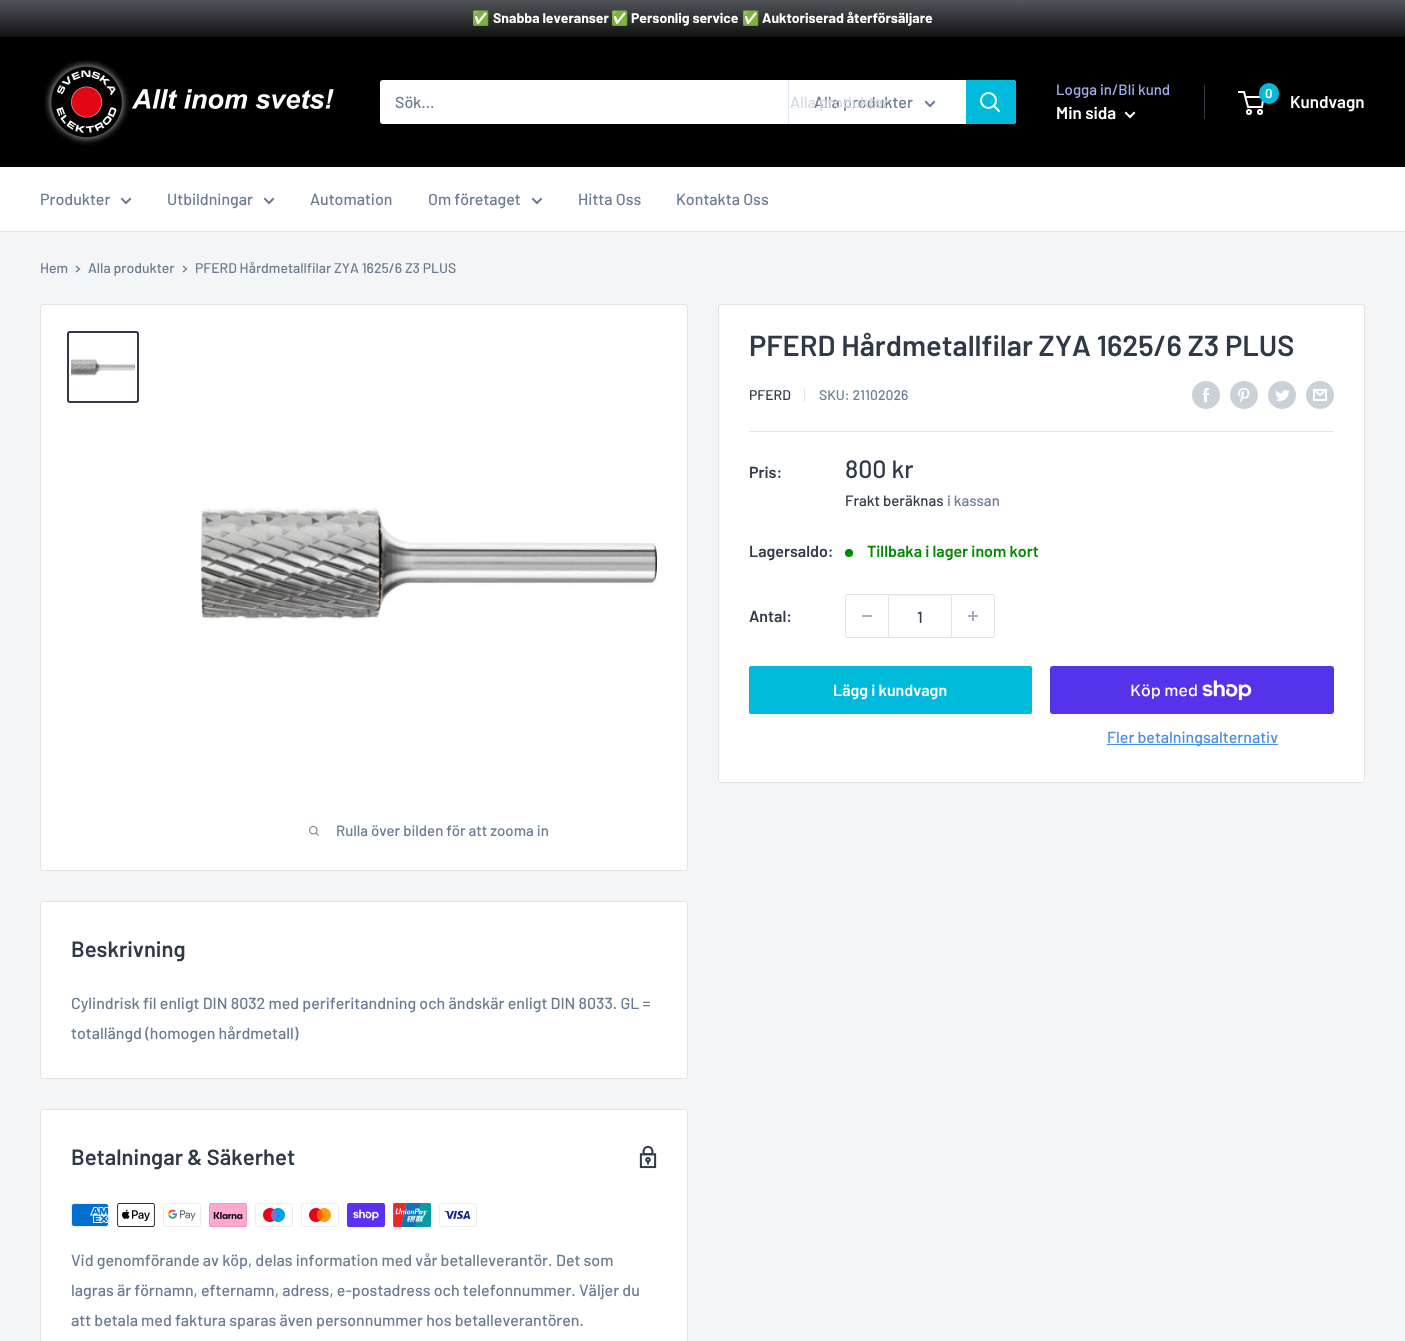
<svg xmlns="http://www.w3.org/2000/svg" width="1405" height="1341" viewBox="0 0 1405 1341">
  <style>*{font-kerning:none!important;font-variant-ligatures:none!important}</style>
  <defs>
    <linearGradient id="g1" gradientUnits="userSpaceOnUse" x1="703" y1="0" x2="703" y2="37"><stop offset="0" stop-color="#52545a"/><stop offset="1" stop-color="#111111"/></linearGradient>
  </defs>
  <rect width="100%" height="100%" fill="#f3f5f6"/>
  <rect x="0" y="0" width="1405" height="37" fill="url(#g1)"/>
  <text x="472" y="23" font-family="Noto Color Emoji" font-size="14" font-weight="bold" fill="#ffffff">✅</text>
  <text x="493" y="23" font-family="Barlow" font-size="14" font-weight="bold" fill="#ffffff">Snabba leveranser</text>
  <text x="611" y="23" font-family="Noto Color Emoji" font-size="14" font-weight="bold" fill="#ffffff">✅</text>
  <text x="631" y="23" font-family="Barlow" font-size="14" font-weight="bold" fill="#ffffff">Personlig service</text>
  <text x="742" y="23" font-family="Noto Color Emoji" font-size="14" font-weight="bold" fill="#ffffff">✅</text>
  <text x="762" y="23" font-family="Barlow" font-size="14" font-weight="bold" fill="#ffffff">Auktoriserad återförsäljare</text>
  <rect x="0" y="37" width="1405" height="130" fill="#000000"/>
  <image x="44" y="60" width="290" height="85" href="img1.png"/>
  <rect x="380" y="80" width="636" height="44" rx="3" fill="#ffffff"/>
  <text x="395" y="108" font-family="Barlow" font-size="16" font-weight="500" fill="#6b7c93">Sök...</text>
  <rect x="788" y="80" width="1" height="44" fill="#e3e7fa"/>
  <text x="814" y="108" font-family="Barlow" font-size="16" font-weight="500" fill="#6b7c93">Alla produkter</text>
  <text x="790" y="108" font-family="Barlow" font-size="16" font-weight="500" fill="#d6dbe1">Alla produkter</text>
  <path d="M934 102L930 106L926 102" fill="none" stroke="#6b7c93" stroke-width="2" stroke-linecap="square"/>
  <path d="M966 80H1013C1014.5 80 1016 81.5 1016 83V121C1016 122.5 1014.5 124 1013 124H966Z" fill="#00badb"/>
  <path d="M999 111L994 106" fill="none" stroke="#ffffff" stroke-width="2" stroke-linecap="square"/>
  <circle cx="988.5" cy="100.5" r="7.5" fill="none" stroke="#ffffff" stroke-width="2"/>
  <text x="1056" y="95" font-family="Barlow" font-size="15" font-weight="500" fill="#a3afef">Logga in/Bli kund</text>
  <rect x="1204" y="85" width="1" height="34" fill="#313548"/>
  <text x="1056" y="119" font-family="Barlow" font-size="17" font-weight="600" fill="#ffffff">Min sida</text>
  <path d="M1134 113L1130 117L1126 113" fill="none" stroke="#ffffff" stroke-width="2" stroke-linecap="square"/>
  <circle cx="1249" cy="112" r="2" fill="none" stroke="#ffffff" stroke-width="2"/>
  <circle cx="1260" cy="112" r="2" fill="none" stroke="#ffffff" stroke-width="2"/>
  <path d="M1245.5 97H1263.5L1262 107H1248L1244 92H1238" fill="none" stroke="#ffffff" stroke-width="2"/>
  <rect x="1259" y="83" width="20" height="21" rx="10" fill="#00badb"/>
  <text x="1265" y="98" font-family="Barlow" font-size="13" font-weight="600" fill="#ffffff">0</text>
  <text x="1290" y="108" font-family="Barlow" font-size="17" font-weight="600" fill="#ffffff">Kundvagn</text>
  <rect x="0" y="167" width="1405" height="64" fill="#ffffff"/>
  <rect x="0" y="231" width="1405" height="1" fill="#e1e3e4"/>
  <text x="40" y="205" font-family="Barlow" font-size="16" font-weight="500" fill="#6b7c93">Produkter</text>
  <path d="M130 199L126 203L122 199" fill="none" stroke="#6b7c93" stroke-width="2" stroke-linecap="square"/>
  <text x="167" y="205" font-family="Barlow" font-size="16" font-weight="500" fill="#6b7c93">Utbildningar</text>
  <path d="M273 199L269 203L265 199" fill="none" stroke="#6b7c93" stroke-width="2" stroke-linecap="square"/>
  <text x="310" y="205" font-family="Barlow" font-size="16" font-weight="500" fill="#6b7c93">Automation</text>
  <text x="428" y="205" font-family="Barlow" font-size="16" font-weight="500" fill="#6b7c93">Om företaget</text>
  <path d="M541 199L537 203L533 199" fill="none" stroke="#6b7c93" stroke-width="2" stroke-linecap="square"/>
  <text x="578" y="205" font-family="Barlow" font-size="16" font-weight="500" fill="#6b7c93">Hitta Oss</text>
  <text x="676" y="205" font-family="Barlow" font-size="16" font-weight="500" fill="#6b7c93">Kontakta Oss</text>
  <text x="40" y="273" font-family="Barlow" font-size="14" font-weight="500" fill="#6b7c93">Hem</text>
  <path d="M76.5 266.5L79.5 269L76.5 271.5" fill="none" stroke="#6b7c93" stroke-width="1.3" stroke-linecap="square"/>
  <text x="88" y="273" font-family="Barlow" font-size="14" font-weight="500" fill="#6b7c93">Alla produkter</text>
  <path d="M183.5 266.5L186.5 269L183.5 271.5" fill="none" stroke="#6b7c93" stroke-width="1.3" stroke-linecap="square"/>
  <text x="195" y="273" font-family="Barlow" font-size="14" font-weight="500" fill="#6b7c93">PFERD Hårdmetallfilar ZYA 1625/6 Z3 PLUS</text>
  <rect x="718.5" y="304.5" width="646" height="478" rx="2.5" fill="#ffffff" stroke="#e1e3e4"/>
  <text x="749" y="356" font-family="Barlow" font-size="29" font-weight="600" fill="#2f3947">PFERD Hårdmetallfilar ZYA 1625/6 Z3 PLUS</text>
  <text x="749" y="400" font-family="Barlow" font-size="14" font-weight="500" fill="#2f3947">PFERD</text>
  <rect x="804" y="389" width="1" height="13" fill="#e1e3e4"/>
  <text x="819" y="400" font-family="Barlow" font-size="14" font-weight="500" fill="#6b7c93">SKU: 21102026</text>
  <image x="1192" y="381" width="28" height="28" href="img2.png"/>
  <image x="1230" y="381" width="28" height="28" href="img3.png"/>
  <image x="1268" y="381" width="28" height="28" href="img4.png"/>
  <image x="1306" y="381" width="28" height="28" href="img5.png"/>
  <rect x="749" y="431" width="585" height="1" fill="#e1e3e4"/>
  <text x="749" y="478" font-family="Barlow" font-size="16" font-weight="600" fill="#2f3947">Pris:</text>
  <text x="845" y="478" font-family="Barlow" font-size="25" font-weight="500" fill="#2f3947">800 kr</text>
  <text x="845" y="506" font-family="Barlow" font-size="15" font-weight="500" fill="#2f3947">Frakt beräknas</text>
  <text x="947" y="506" font-family="Barlow" font-size="15" font-weight="500" fill="#6b7c93">i kassan</text>
  <text x="749" y="557" font-family="Barlow" font-size="16" font-weight="600" fill="#2f3947">Lagersaldo:</text>
  <circle cx="849" cy="553" r="4" fill="#008a00"/>
  <text x="867" y="557" font-family="Barlow" font-size="16" font-weight="600" fill="#008a00">Tillbaka i lager inom kort</text>
  <text x="749" y="622" font-family="Barlow" font-size="16" font-weight="600" fill="#2f3947">Antal:</text>
  <rect x="845.5" y="594.5" width="149" height="43" rx="2.5" fill="none" stroke="#e1e3e4"/>
  <rect x="862" y="615" width="10" height="2" fill="#a6b0be"/>
  <rect x="889" y="595" width="62" height="1" fill="#f3f4f4"/>
  <rect x="951" y="595" width="1" height="42" fill="#e1e3e4"/>
  <rect x="888" y="595" width="1" height="42" fill="#e1e3e4"/>
  <text x="917" y="623" font-family="Barlow" font-size="16" font-weight="500" fill="#2f3947">1</text>
  <image x="968" y="611" width="10" height="10" href="img6.png"/>
  <rect x="749" y="666" width="283" height="48" rx="2" fill="#00badb"/>
  <text x="833" y="696" font-family="Barlow" font-size="16" font-weight="600" fill="#ffffff">Lägg i kundvagn</text>
  <rect x="1050" y="666" width="284" height="48" rx="3" fill="#5433eb"/>
  <text x="1130" y="696" font-family="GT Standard" font-size="16" font-weight="500" fill="#ffffff">Köp med</text>
  <image x="1202" y="680" width="50" height="20" href="img7.png"/>
  <rect x="1107" y="744" width="171" height="1" fill="#4a90e2"/>
  <text x="1107" y="743" font-family="Barlow" font-size="16" font-weight="500" fill="#4a90e2">Fler betalningsalternativ</text>
  <rect x="40.5" y="304.5" width="647" height="566" rx="2.5" fill="#ffffff" stroke="#e1e3e4"/>
  <rect x="68" y="332" width="70" height="70" rx="2" fill="none" stroke="#2f3947" stroke-width="2"/>
  <image x="71" y="359" width="64" height="17" href="img8.png"/>
  <image x="201" y="507" width="456" height="114" href="img9.png"/>
  <image x="309" y="826" width="10" height="10" href="img10.png"/>
  <text x="336" y="836" font-family="Barlow" font-size="15" font-weight="500" fill="#6b7c93">Rulla över bilden för att zooma in</text>
  <rect x="40.5" y="901.5" width="647" height="177" rx="2.5" fill="#ffffff" stroke="#e1e3e4"/>
  <text x="71" y="957" font-family="Barlow" font-size="22" font-weight="600" fill="#2f3947">Beskrivning</text>
  <text x="71" y="1009" font-family="Barlow" font-size="16" font-weight="500" fill="#6b7c93">Cylindrisk fil enligt DIN 8032 med periferitandning och ändskär enligt DIN 8033. GL =</text>
  <text x="71" y="1039" font-family="Barlow" font-size="16" font-weight="500" fill="#6b7c93">totallängd (homogen hårdmetall)</text>
  <rect x="40.5" y="1109.5" width="647" height="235" rx="2.5" fill="#ffffff" stroke="#e1e3e4"/>
  <text x="71" y="1165" font-family="Barlow" font-size="22" font-weight="600" fill="#2f3947">Betalningar &amp; Säkerhet</text>
  <image x="639" y="1145" width="18" height="24" href="img11.png"/>
  <image x="71" y="1203" width="38" height="24" href="img12.png"/>
  <image x="117" y="1203" width="38" height="24" href="img13.png"/>
  <image x="163" y="1203" width="38" height="24" href="img14.png"/>
  <image x="209" y="1203" width="38" height="24" href="img15.png"/>
  <image x="255" y="1203" width="38" height="24" href="img16.png"/>
  <image x="301" y="1203" width="38" height="24" href="img17.png"/>
  <image x="347" y="1203" width="38" height="24" href="img18.png"/>
  <image x="393" y="1203" width="38" height="24" href="img19.png"/>
  <image x="439" y="1203" width="38" height="24" href="img20.png"/>
  <text x="71" y="1266" font-family="Barlow" font-size="16" font-weight="500" fill="#6b7c93">Vid genomförande av köp, delas information med vår betalleverantör.</text>
  <text x="556" y="1266" font-family="Barlow" font-size="16" font-weight="500" fill="#6b7c93">Det som</text>
  <text x="71" y="1296" font-family="Barlow" font-size="16" font-weight="500" fill="#6b7c93">lagras är förnamn, efternamn, adress, e-postadress och telefonnummer.</text>
  <text x="579" y="1296" font-family="Barlow" font-size="16" font-weight="500" fill="#6b7c93">Väljer du</text>
  <text x="71" y="1326" font-family="Barlow" font-size="16" font-weight="500" fill="#6b7c93">att betala med faktura sparas även personnummer hos betalleverantören.</text>
</svg>
